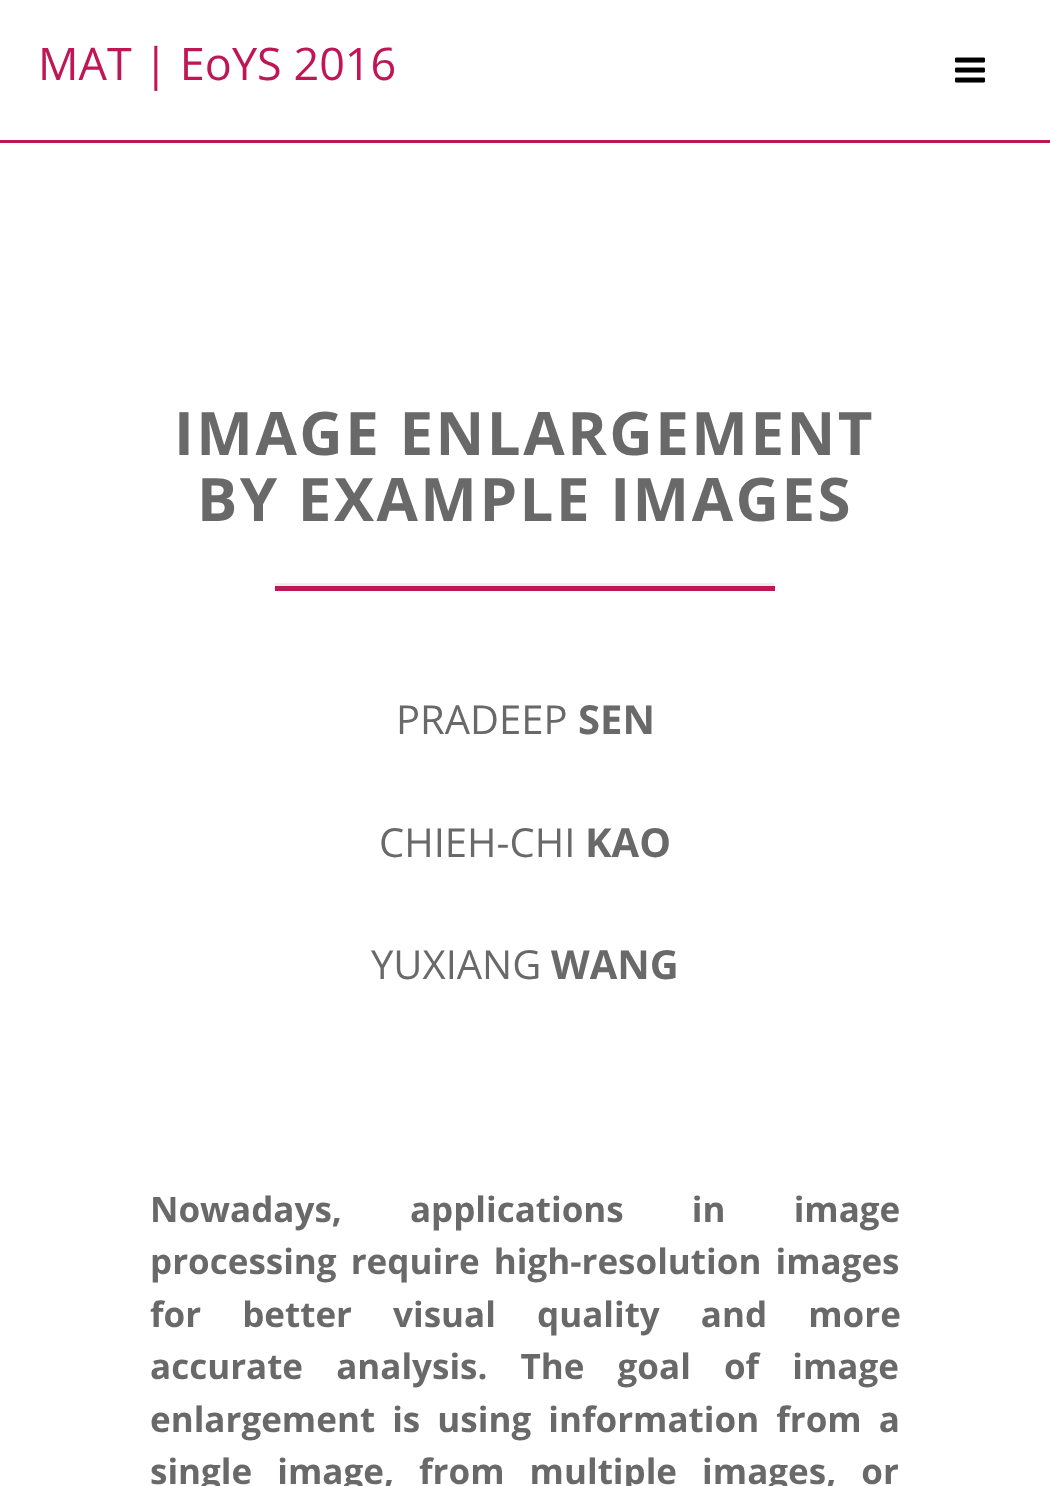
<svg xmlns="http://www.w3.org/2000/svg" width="1050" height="1486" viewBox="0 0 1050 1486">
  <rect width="100%" height="100%" fill="#ffffff"/>
  <rect x="0" y="140" width="1050" height="3" fill="#bf1656"/>
  <text x="38" y="80" font-family="Open Sans" font-size="45" fill="#bf1656">MAT | EoYS 2016</text>
  <image x="955" y="57" width="30" height="26" href="img1.png"/>
  <text x="174" y="455" font-family="Open Sans" font-size="60" font-weight="bold" letter-spacing="2.5" fill="#696969">IMAGE ENLARGEMENT</text>
  <text x="197" y="521" font-family="Open Sans" font-size="60" font-weight="bold" letter-spacing="2.5" fill="#696969">BY EXAMPLE IMAGES</text>
  <rect x="275" y="586" width="500" height="5" fill="#bf1656"/>
  <rect x="275" y="583" width="500" height="3" fill="#eeeeee"/>
  <text x="396" y="734" font-family="Open Sans" font-size="40" fill="#696969">PRADEEP</text>
  <text x="578" y="734" font-family="Open Sans" font-size="40" font-weight="bold" fill="#696969">SEN</text>
  <text x="379" y="857" font-family="Open Sans" font-size="40" fill="#696969">CHIEH-CHI</text>
  <text x="585" y="857" font-family="Open Sans" font-size="40" font-weight="bold" fill="#696969">KAO</text>
  <text x="371" y="979" font-family="Open Sans" font-size="40" fill="#696969">YUXIANG</text>
  <text x="551" y="979" font-family="Open Sans" font-size="40" font-weight="bold" fill="#696969">WANG</text>
  <text x="150" y="1222" word-spacing="59" font-family="Open Sans" font-size="35" font-weight="bold" fill="#696969">Nowadays, applications in image</text>
  <text x="150" y="1274" word-spacing="5" font-family="Open Sans" font-size="35" font-weight="bold" fill="#696969">processing require high-resolution images</text>
  <text x="150" y="1327" word-spacing="32" font-family="Open Sans" font-size="35" font-weight="bold" fill="#696969">for better visual quality and more</text>
  <text x="150" y="1379" word-spacing="24" font-family="Open Sans" font-size="35" font-weight="bold" fill="#696969">accurate analysis. The goal of image</text>
  <text x="150" y="1432" word-spacing="8" font-family="Open Sans" font-size="35" font-weight="bold" fill="#696969">enlargement is using information from a</text>
  <text x="150" y="1484" word-spacing="16" font-family="Open Sans" font-size="35" font-weight="bold" fill="#696969">single image, from multiple images, or</text>
</svg>
